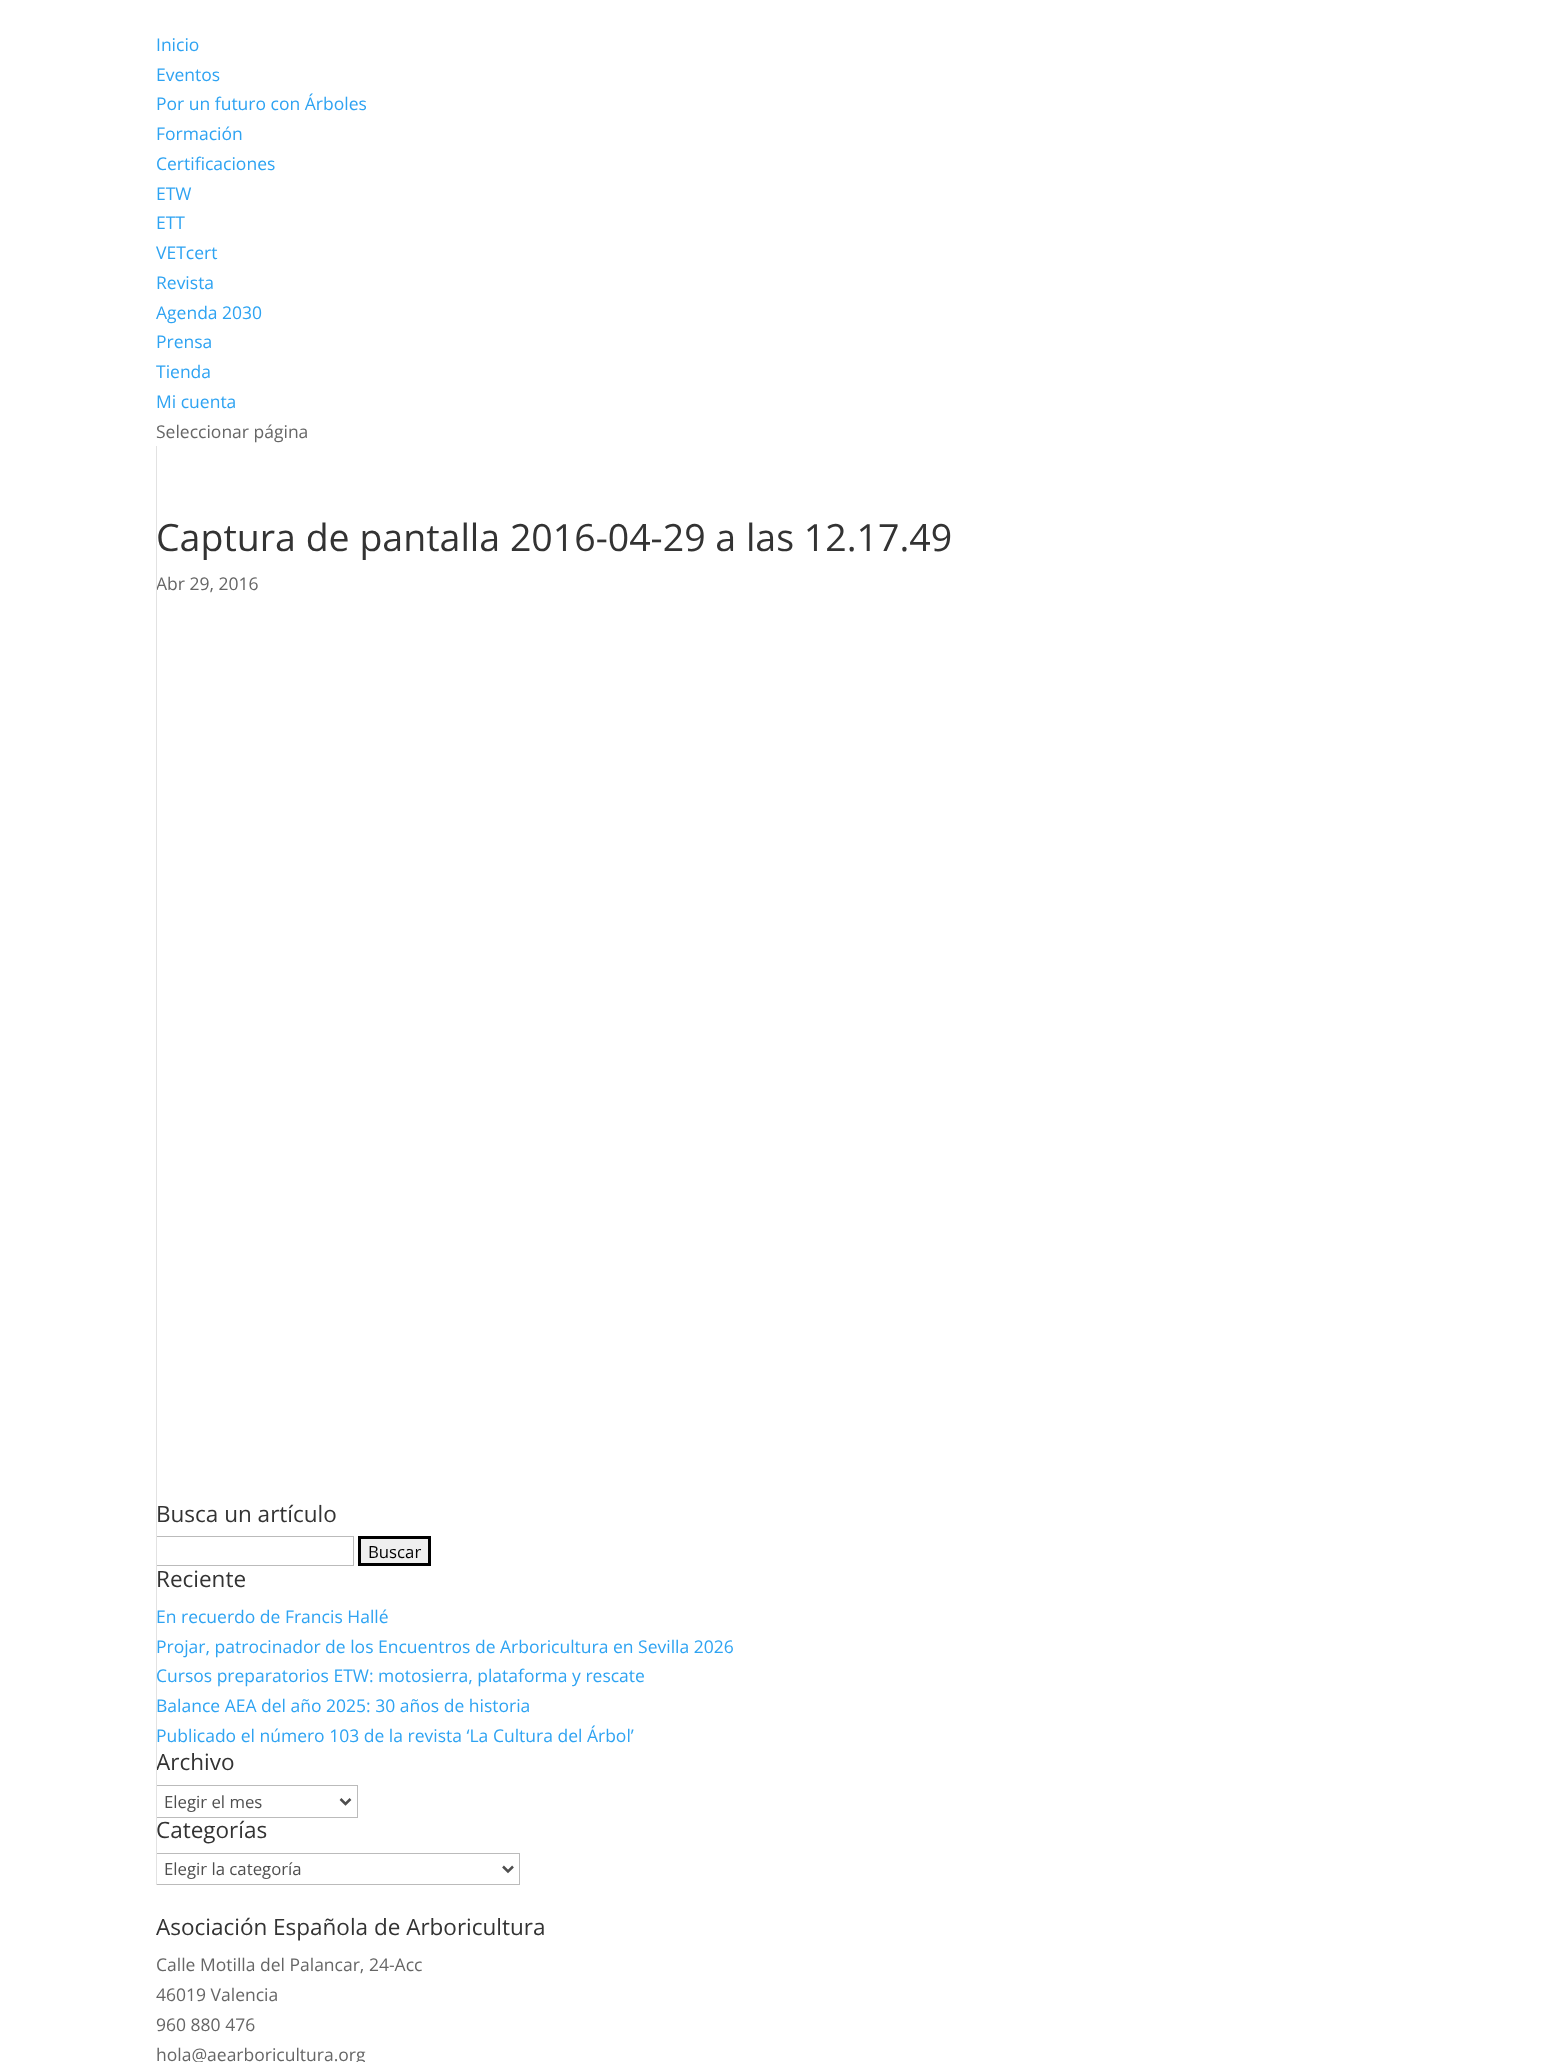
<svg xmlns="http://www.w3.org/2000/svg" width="1556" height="2062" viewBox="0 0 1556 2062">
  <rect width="100%" height="100%" fill="#ffffff"/>
  <text x="156" y="51" font-family="Open Sans" font-size="17.5" fill="#2ea3f2">Inicio</text>
  <text x="156" y="81" font-family="Open Sans" font-size="17.5" fill="#2ea3f2">Eventos</text>
  <text x="156" y="110" font-family="Open Sans" font-size="17.5" fill="#2ea3f2">Por un futuro con Árboles</text>
  <text x="156" y="140" font-family="Open Sans" font-size="17.5" fill="#2ea3f2">Formación</text>
  <text x="156" y="170" font-family="Open Sans" font-size="17.5" fill="#2ea3f2">Certificaciones</text>
  <text x="156" y="200" font-family="Open Sans" font-size="17.5" fill="#2ea3f2">ETW</text>
  <text x="156" y="229" font-family="Open Sans" font-size="17.5" fill="#2ea3f2">ETT</text>
  <text x="156" y="259" font-family="Open Sans" font-size="17.5" fill="#2ea3f2">VETcert</text>
  <text x="156" y="289" font-family="Open Sans" font-size="17.5" fill="#2ea3f2">Revista</text>
  <text x="156" y="319" font-family="Open Sans" font-size="17.5" fill="#2ea3f2">Agenda 2030</text>
  <text x="156" y="348" font-family="Open Sans" font-size="17.5" fill="#2ea3f2">Prensa</text>
  <text x="156" y="378" font-family="Open Sans" font-size="17.5" fill="#2ea3f2">Tienda</text>
  <text x="156" y="408" font-family="Open Sans" font-size="17.5" fill="#2ea3f2">Mi cuenta</text>
  <text x="156" y="438" font-family="Open Sans" font-size="17.5" fill="#666666">Seleccionar página</text>
  <text x="156" y="590" font-family="Open Sans" font-size="17.5" fill="#666666">Abr 29, 2016</text>
  <rect x="156.5" y="1536.5" width="197" height="29" fill="none" stroke="#bbbbbb"/>
  <text x="156" y="1682" font-family="Open Sans" font-size="17.5" fill="#2ea3f2">Cursos preparatorios ETW: motosierra, plataforma y rescate</text>
  <text x="156" y="1770" font-family="Open Sans" font-size="22.5" fill="#333333">Archivo</text>
  <rect x="156.5" y="1785.5" width="201" height="32" fill="none" stroke="#bbbbbb"/>
  <rect x="156.5" y="1853.5" width="363" height="31" fill="none" stroke="#bbbbbb"/>
  <rect x="156" y="446" width="1" height="1439" fill="#e2e2e2"/>
  <text x="156" y="551" font-family="Open Sans" font-size="37.5" fill="#333333">Captura de pantalla 2016-04-29 a las 12.17.49</text>
  <text x="156" y="1522" font-family="Open Sans" font-size="22.5" fill="#333333">Busca un artículo</text>
  <rect x="359.5" y="1537.5" width="70" height="27" fill="#efefef" stroke="#000000" stroke-width="3"/>
  <text x="368" y="1558" font-family="Open Sans" font-size="16.75" fill="#000000">Buscar</text>
  <text x="156" y="1587" font-family="Open Sans" font-size="22.5" fill="#333333">Reciente</text>
  <text x="156" y="1623" font-family="Open Sans" font-size="17.5" fill="#2ea3f2">En recuerdo de Francis Hallé</text>
  <text x="156" y="1653" font-family="Open Sans" font-size="17.5" fill="#2ea3f2">Projar, patrocinador de los Encuentros de Arboricultura en Sevilla 2026</text>
  <text x="156" y="1712" font-family="Open Sans" font-size="17.5" fill="#2ea3f2">Balance AEA del año 2025: 30 años de historia</text>
  <text x="156" y="1742" font-family="Open Sans" font-size="17.5" fill="#2ea3f2">Publicado el número 103 de la revista ‘La Cultura del Árbol’</text>
  <path d="M340.5 1799L345.5 1804L350.5 1799" fill="none" stroke="#4e4e4e" stroke-width="2.5"/>
  <text x="164" y="1808" font-family="Open Sans" font-size="16.75" fill="#4e4e4e">Elegir el mes</text>
  <text x="156" y="1838" font-family="Open Sans" font-size="22.5" fill="#333333">Categorías</text>
  <path d="M503 1866.5L508 1871.5L513 1866.5" fill="none" stroke="#4e4e4e" stroke-width="2.5"/>
  <text x="164" y="1875" font-family="Open Sans" font-size="16.75" fill="#4e4e4e">Elegir la categoría</text>
  <text x="156" y="1935" font-family="Open Sans" font-size="22.5" fill="#333333">Asociación Española de Arboricultura</text>
  <text x="156" y="1971" font-family="Open Sans" font-size="17.5" fill="#666666">Calle Motilla del Palancar, 24-Acc</text>
  <text x="156" y="2001" font-family="Open Sans" font-size="17.5" fill="#666666">46019 Valencia</text>
  <text x="156" y="2031" font-family="Open Sans" font-size="17.5" fill="#666666">960 880 476</text>
  <text x="156" y="2061" font-family="Open Sans" font-size="17.5" fill="#666666">hola@aearboricultura.org</text>
</svg>
